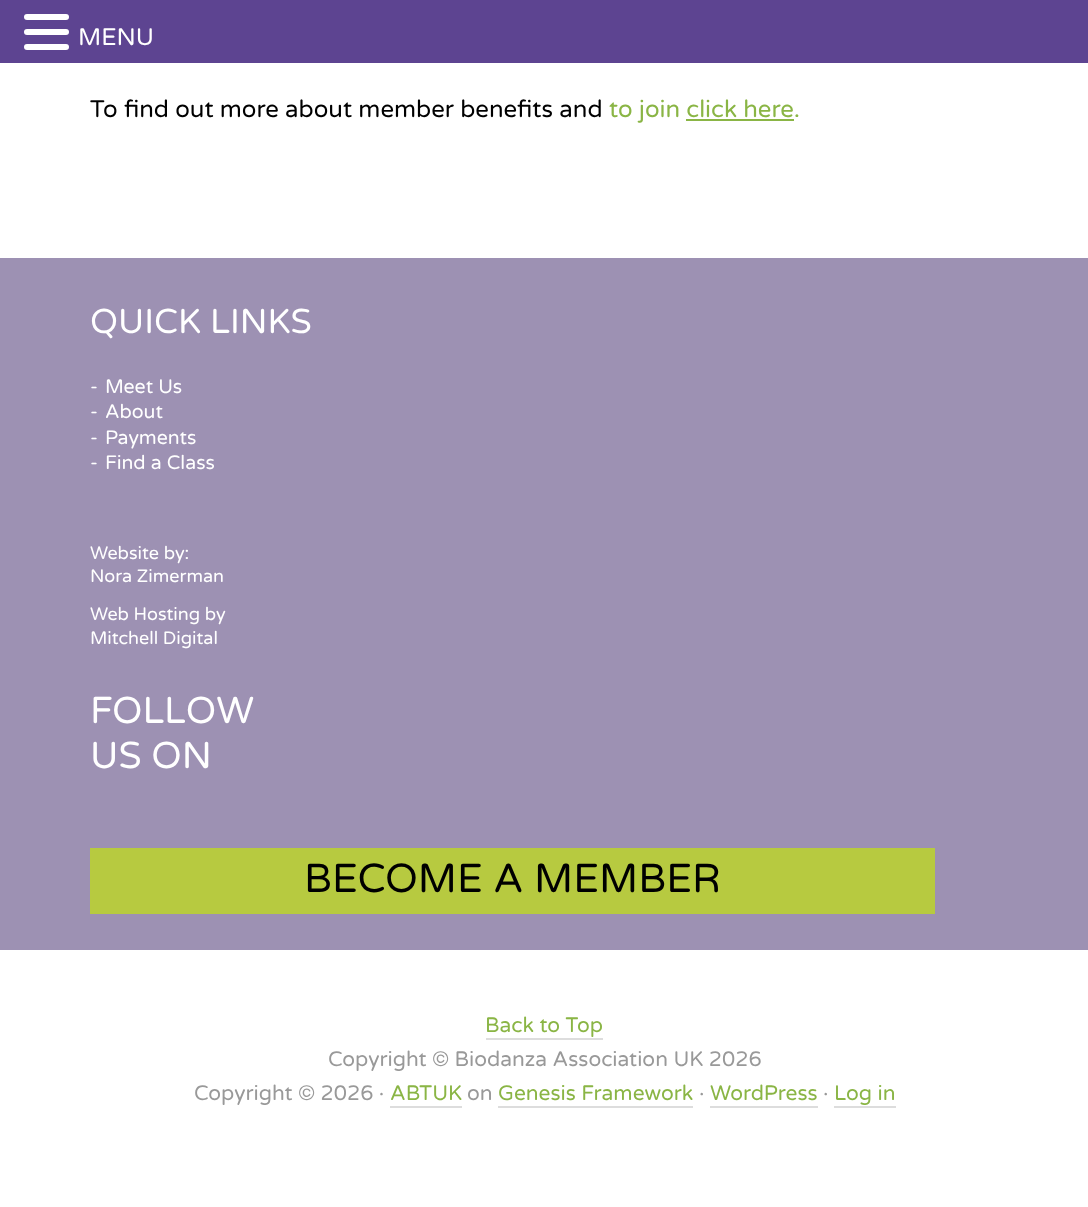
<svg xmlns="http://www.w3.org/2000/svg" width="1088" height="1207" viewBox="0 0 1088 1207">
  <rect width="100%" height="100%" fill="#ffffff"/>
  <rect x="0" y="0" width="1088" height="63" fill="#5d4491"/>
  <rect x="24" y="14" width="45" height="6" rx="3" fill="#ffffff"/>
  <rect x="24" y="29" width="45" height="6" rx="3" fill="#ffffff"/>
  <rect x="24" y="44" width="45" height="6" rx="3" fill="#ffffff"/>
  <text x="78" y="45" font-family="Varela Round" font-size="24" fill="#ffffff">MENU</text>
  <text x="90" y="117" font-family="Varela Round" font-size="24" fill="#000000">To find out more about member benefits and</text>
  <text x="609" y="117" font-family="Varela Round" font-size="24" fill="#8ab545">to join click here.</text>
  <rect x="686" y="119" width="108" height="2" fill="#8ab545"/>
  <rect x="0" y="258" width="1088" height="692" fill="#9d91b3"/>
  <text x="90" y="333" font-family="Varela Round" font-size="34.5" fill="#ffffff">QUICK LINKS</text>
  <text x="90" y="393" font-family="Varela Round" font-size="19.5" fill="#ffffff">-</text>
  <text x="105" y="393" font-family="Varela Round" font-size="19.5" fill="#ffffff">Meet Us</text>
  <text x="90" y="418" font-family="Varela Round" font-size="19.5" fill="#ffffff">-</text>
  <text x="105" y="418" font-family="Varela Round" font-size="19.5" fill="#ffffff">About</text>
  <text x="90" y="444" font-family="Varela Round" font-size="19.5" fill="#ffffff">-</text>
  <text x="105" y="444" font-family="Varela Round" font-size="19.5" fill="#ffffff">Payments</text>
  <text x="90" y="469" font-family="Varela Round" font-size="19.5" fill="#ffffff">-</text>
  <text x="105" y="469" font-family="Varela Round" font-size="19.5" fill="#ffffff">Find a Class</text>
  <text x="90" y="559" font-family="Varela Round" font-size="18" fill="#ffffff">Website by:</text>
  <text x="90" y="582" font-family="Varela Round" font-size="18" fill="#ffffff">Nora Zimerman</text>
  <text x="90" y="620" font-family="Varela Round" font-size="18" fill="#ffffff">Web Hosting by</text>
  <text x="90" y="644" font-family="Varela Round" font-size="18" fill="#ffffff">Mitchell Digital</text>
  <text x="90" y="723" font-family="Varela Round" font-size="37.5" fill="#ffffff">FOLLOW</text>
  <text x="90" y="768" font-family="Varela Round" font-size="37.5" fill="#ffffff">US ON</text>
  <rect x="90" y="848" width="845" height="66" fill="#b7ca40"/>
  <text x="304" y="892" font-family="Varela Round" font-size="40.5" fill="#000000">BECOME A MEMBER</text>
  <text x="485" y="1032" font-family="Varela Round" font-size="21" fill="#8ab545">Back to Top</text>
  <rect x="486" y="1038" width="117" height="2" fill="#dddddd"/>
  <text x="328" y="1066" font-family="Varela Round" font-size="21" fill="#999999">Copyright © Biodanza Association UK 2026</text>
  <text x="194" y="1100" font-family="Varela Round" font-size="21" fill="#999999">Copyright © 2026 ·</text>
  <text x="390" y="1100" font-family="Varela Round" font-size="21" fill="#8ab545">ABTUK</text>
  <rect x="390" y="1106" width="72" height="2" fill="#dddddd"/>
  <text x="467" y="1100" font-family="Varela Round" font-size="21" fill="#999999">on</text>
  <text x="498" y="1100" font-family="Varela Round" font-size="21" fill="#8ab545">Genesis Framework</text>
  <rect x="498" y="1106" width="195" height="2" fill="#dddddd"/>
  <text x="699" y="1100" font-family="Varela Round" font-size="21" fill="#999999">·</text>
  <text x="710" y="1100" font-family="Varela Round" font-size="21" fill="#8ab545">WordPress</text>
  <rect x="710" y="1106" width="108" height="2" fill="#dddddd"/>
  <text x="823" y="1100" font-family="Varela Round" font-size="21" fill="#999999">·</text>
  <text x="834" y="1100" font-family="Varela Round" font-size="21" fill="#8ab545">Log in</text>
  <rect x="834" y="1106" width="62" height="2" fill="#dddddd"/>
</svg>
